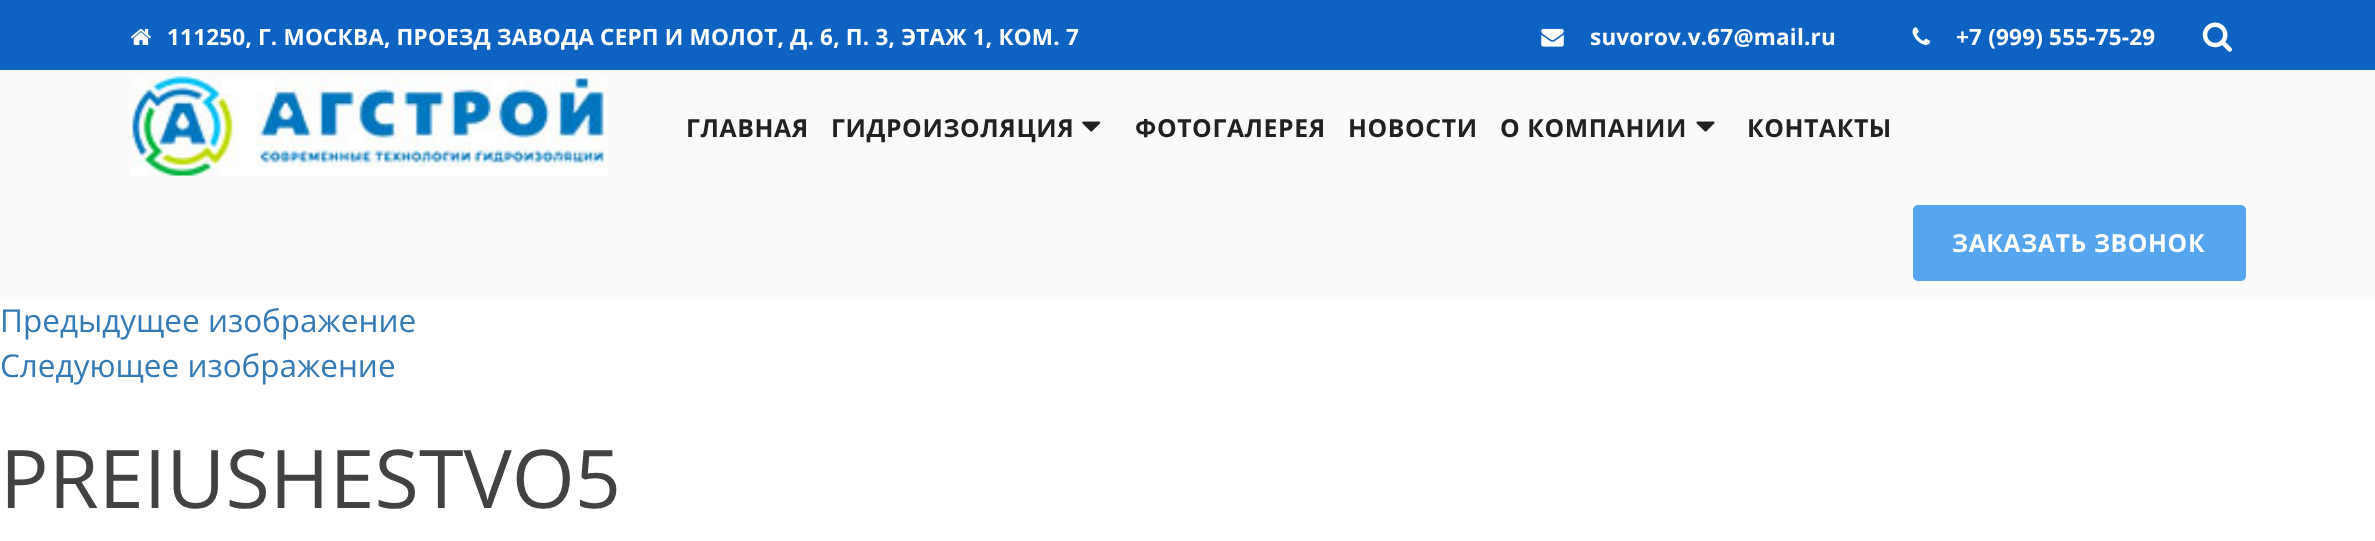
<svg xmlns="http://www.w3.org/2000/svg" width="2375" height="541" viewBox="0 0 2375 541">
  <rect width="100%" height="100%" fill="#ffffff"/>
  <rect x="0" y="0" width="2375" height="70" fill="#0e62c1"/>
  <image x="130" y="28" width="21" height="17" href="img1.png"/>
  <text x="167" y="45" font-family="Open Sans" font-size="22.5" font-weight="bold" letter-spacing="0.2" fill="#ffffff">111250, Г. МОСКВА, ПРОЕЗД ЗАВОДА СЕРП И МОЛОТ, Д. 6, П. 3, ЭТАЖ 1, КОМ. 7</text>
  <image x="1541" y="28" width="23" height="19" href="img2.png"/>
  <text x="1590" y="45" font-family="Open Sans" font-size="22.5" font-weight="bold" letter-spacing="0.2" fill="#ffffff">suvorov.v.67@mail.ru</text>
  <image x="1912" y="27" width="19" height="18" href="img3.png"/>
  <text x="1956" y="45" font-family="Open Sans" font-size="22.5" font-weight="bold" letter-spacing="0.2" fill="#ffffff">+7 (999) 555-75-29</text>
  <image x="2202" y="22" width="30" height="30" href="img4.png"/>
  <rect x="0" y="70" width="2375" height="229" fill="#fafafa"/>
  <image x="130" y="76" width="478" height="100" href="img5.png"/>
  <text x="686" y="137" font-family="Open Sans" font-size="24.75" font-weight="bold" letter-spacing="0.6" fill="#212121">ГЛАВНАЯ</text>
  <text x="831" y="137" font-family="Open Sans" font-size="24.75" font-weight="bold" letter-spacing="0.6" fill="#212121">ГИДРОИЗОЛЯЦИЯ</text>
  <image x="1082" y="121" width="19" height="11" href="img6.png"/>
  <text x="1135" y="137" font-family="Open Sans" font-size="24.75" font-weight="bold" letter-spacing="0.6" fill="#212121">ФОТОГАЛЕРЕЯ</text>
  <text x="1348" y="137" font-family="Open Sans" font-size="24.75" font-weight="bold" letter-spacing="0.6" fill="#212121">НОВОСТИ</text>
  <text x="1500" y="137" font-family="Open Sans" font-size="24.75" font-weight="bold" letter-spacing="0.6" fill="#212121">О КОМПАНИИ</text>
  <image x="1696" y="121" width="19" height="11" href="img7.png"/>
  <text x="1747" y="137" font-family="Open Sans" font-size="24.75" font-weight="bold" letter-spacing="0.6" fill="#212121">КОНТАКТЫ</text>
  <rect x="1915.5" y="207.5" width="328" height="71" rx="2.5" fill="#55a5ef" stroke="#55a5ef" stroke-width="5"/>
  <text x="1952" y="252" font-family="Open Sans" font-size="24.75" font-weight="bold" letter-spacing="0.6" fill="#ffffff">ЗАКАЗАТЬ ЗВОНОК</text>
  <text x="0" y="332" font-family="Open Sans" font-size="31.5" fill="#337ab7">Предыдущее изображение</text>
  <text x="0" y="377" font-family="Open Sans" font-size="31.5" fill="#337ab7">Следующее изображение</text>
  <text x="0" y="508" font-family="Open Sans" font-size="81" fill="#424242">PREIUSHESTVO5</text>
</svg>
